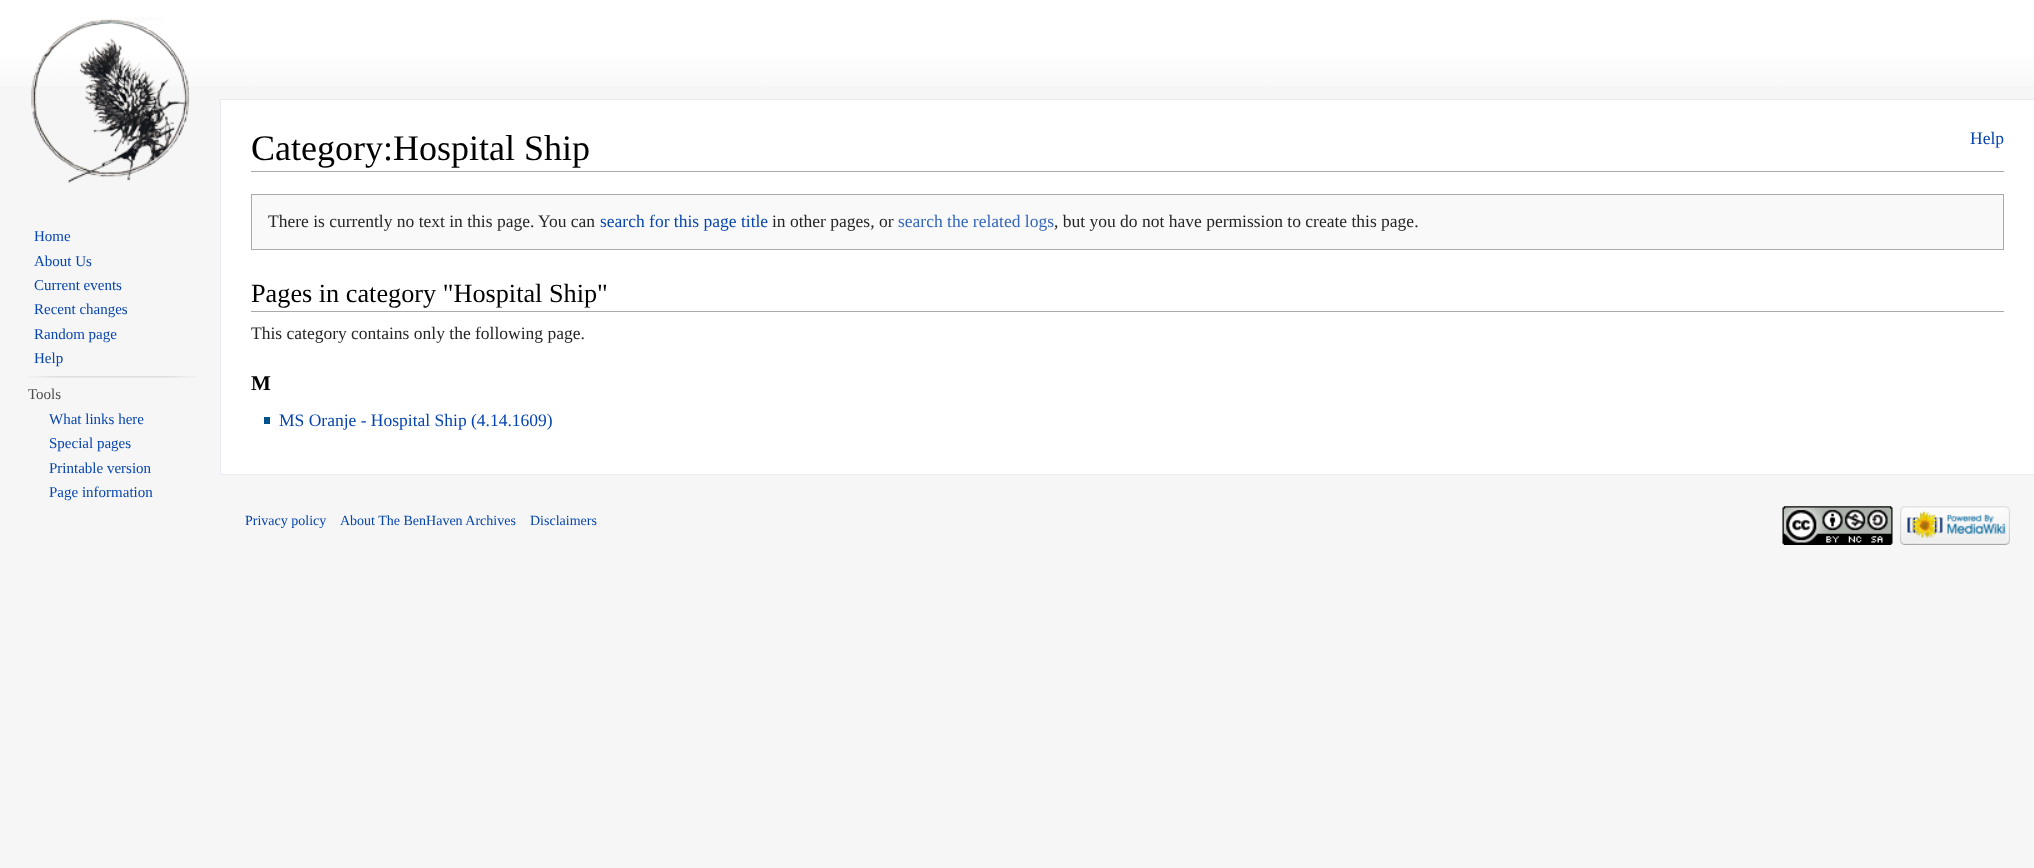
<svg xmlns="http://www.w3.org/2000/svg" width="2034" height="868" viewBox="0 0 2034 868">
  <defs>
    <linearGradient id="g1" gradientUnits="userSpaceOnUse" x1="1018" y1="0" x2="1018" y2="100"><stop offset="0.5" stop-color="#ffffff"/><stop offset="1" stop-color="#f6f6f6"/></linearGradient>
  </defs>
  <rect width="100%" height="100%" fill="#f6f6f6"/>
  <rect x="0" y="0" width="2034" height="86" fill="url(#g1)"/>
  <image x="26" y="17" width="164" height="166" href="img1.png"/>
  <text x="34" y="241" font-family="Liberation Serif" font-size="15" fill="#0645ad">Home</text>
  <text x="34" y="266" font-family="Liberation Serif" font-size="15" fill="#0645ad">About Us</text>
  <text x="34" y="290" font-family="Liberation Serif" font-size="15" fill="#0645ad">Current events</text>
  <text x="34" y="314" font-family="Liberation Serif" font-size="15" fill="#0645ad">Recent changes</text>
  <text x="34" y="339" font-family="Liberation Serif" font-size="15" fill="#0645ad">Random page</text>
  <text x="34" y="363" font-family="Liberation Serif" font-size="15" fill="#0645ad">Help</text>
  <image x="27" y="376" width="170" height="2" href="img2.png"/>
  <text x="28" y="399" font-family="Liberation Serif" font-size="15" fill="#4d4d4d">Tools</text>
  <text x="49" y="424" font-family="Liberation Serif" font-size="15" fill="#0645ad">What links here</text>
  <text x="49" y="448" font-family="Liberation Serif" font-size="15" fill="#0645ad">Special pages</text>
  <text x="49" y="473" font-family="Liberation Serif" font-size="15" fill="#0645ad">Printable version</text>
  <text x="49" y="497" font-family="Liberation Serif" font-size="15" fill="#0645ad">Page information</text>
  <rect x="220.5" y="99.5" width="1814" height="375" fill="#ffffff" stroke="#e9e9f1"/>
  <rect x="251" y="171" width="1753" height="1" fill="#aaaaaa"/>
  <text x="251" y="160" font-family="Liberation Serif" font-size="36" fill="#000000">Category:Hospital Ship</text>
  <text x="1970" y="144" font-family="Liberation Serif" font-size="17.5" fill="#0645ad">Help</text>
  <rect x="251.5" y="194.5" width="1752" height="55" fill="#f9f9f9" stroke="#aaaaaa"/>
  <text x="268" y="227" font-family="Liberation Serif" font-size="17.5" fill="#252525">There is currently no text in this page. You can</text>
  <text x="600" y="227" font-family="Liberation Serif" font-size="17.5" fill="#0645ad">search for this page title</text>
  <text x="772" y="227" font-family="Liberation Serif" font-size="17.5" fill="#252525">in other pages, or</text>
  <text x="898" y="227" font-family="Liberation Serif" font-size="17.5" fill="#3366bb">search the related logs</text>
  <text x="1054" y="227" font-family="Liberation Serif" font-size="17.5" fill="#252525">, but you do not have permission to create this page.</text>
  <rect x="251" y="311" width="1753" height="1" fill="#aaaaaa"/>
  <text x="251" y="302" font-family="Liberation Serif" font-size="26.25" fill="#000000">Pages in category "Hospital Ship"</text>
  <text x="251" y="339" font-family="Liberation Serif" font-size="17.5" fill="#252525">This category contains only the following page.</text>
  <text x="251" y="390" font-family="Liberation Serif" font-size="21" font-weight="bold" fill="#000000">M</text>
  <rect x="264" y="417" width="6" height="7" fill="#00528c"/>
  <text x="279" y="426" font-family="Liberation Serif" font-size="17.5" fill="#0645ad">MS Oranje - Hospital Ship (4.14.1609)</text>
  <text x="245" y="525" font-family="Liberation Serif" font-size="14" fill="#0645ad">Privacy policy</text>
  <text x="340" y="525" font-family="Liberation Serif" font-size="14" fill="#0645ad">About The BenHaven Archives</text>
  <text x="530" y="525" font-family="Liberation Serif" font-size="14" fill="#0645ad">Disclaimers</text>
  <image x="1782" y="506" width="111" height="39" href="img3.png"/>
  <image x="1900" y="506" width="110" height="39" href="img4.png"/>
</svg>
